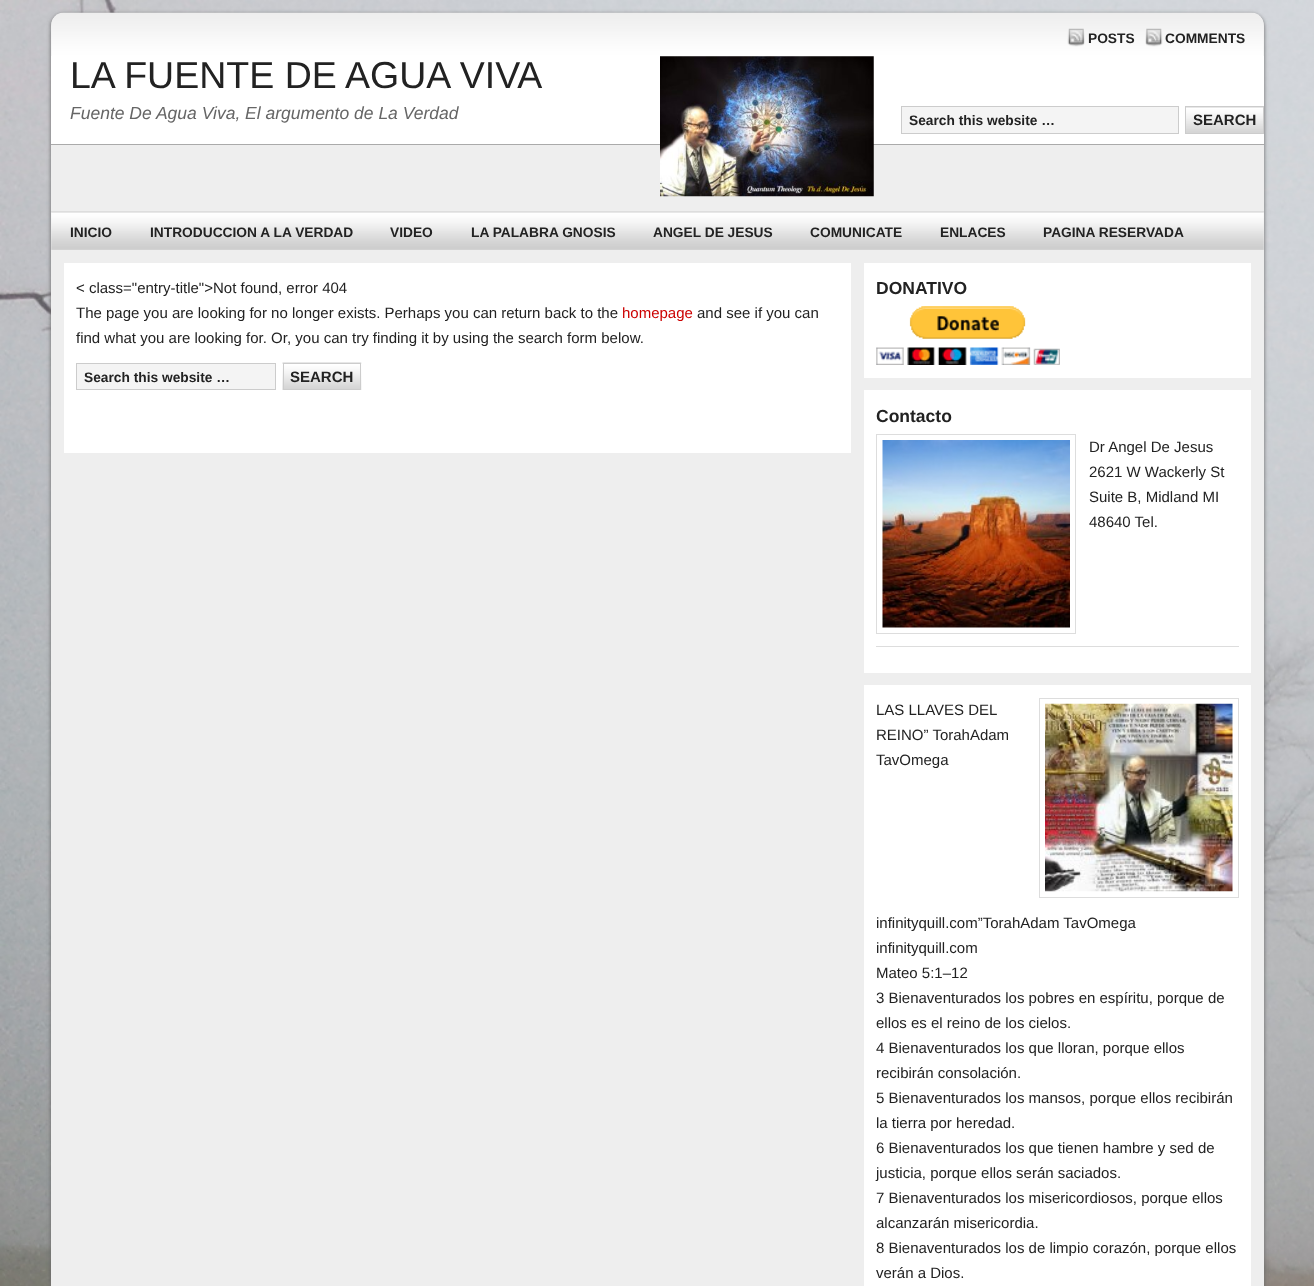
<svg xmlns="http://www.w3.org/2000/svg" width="1314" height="1286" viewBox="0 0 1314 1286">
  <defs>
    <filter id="blur1" x="-50%" y="-200%" width="200%" height="500%"><feGaussianBlur stdDeviation="2"/></filter>
  </defs>
  <rect width="100%" height="100%" fill="#ffffff"/>
  <image x="0" y="0" width="1314" height="1286" href="img1.png"/>
  <rect x="51" y="14" width="1213" height="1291" rx="13" fill="#666666" filter="url(#blur1)"/>
  <rect x="51" y="13" width="1213" height="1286" rx="13" fill="#eeeeee"/>
  <image x="51" y="12" width="1213" height="44" href="img2.png"/>
  <image x="1067" y="28" width="18" height="19" href="img3.png"/>
  <text x="1088" y="43" font-family="Liberation Sans" font-size="13.75" font-weight="bold" fill="#222222">POSTS</text>
  <image x="1145" y="28" width="18" height="19" href="img4.png"/>
  <text x="1165" y="43" font-family="Liberation Sans" font-size="13.75" font-weight="bold" fill="#222222">COMMENTS</text>
  <rect x="51" y="56" width="1213" height="88" fill="#ffffff"/>
  <rect x="51" y="144" width="1213" height="1" fill="#aaaaaa"/>
  <text x="70" y="88" font-family="Liberation Sans" font-size="37.5" fill="#222222">LA FUENTE DE AGUA VIVA</text>
  <text x="70" y="119" font-family="Liberation Sans" font-size="17.5" font-style="italic" fill="#666666">Fuente De Agua Viva, El argumento de La Verdad</text>
  <image x="660" y="56" width="214" height="141" href="img5.png"/>
  <rect x="901.5" y="106.5" width="277" height="27" fill="#f4f4f4" stroke="#cccccc"/>
  <text x="909" y="125" font-family="Liberation Sans" font-size="13.75" font-weight="bold" fill="#222222">Search this website …</text>
  <image x="1186" y="107" width="77" height="26" href="img6.png"/>
  <rect x="1185.5" y="106.5" width="78" height="27" fill="none" stroke="#cccccc"/>
  <text x="1193" y="125" font-family="Liberation Sans" font-size="15" font-weight="bold" fill="#222222">SEARCH</text>
  <image x="51" y="212" width="1213" height="38" href="img7.png"/>
  <rect x="51" y="211" width="1213" height="1" fill="#dddddd"/>
  <text x="70" y="237" font-family="Liberation Sans" font-size="13.75" font-weight="bold" fill="#222222">INICIO</text>
  <text x="150" y="237" font-family="Liberation Sans" font-size="13.75" font-weight="bold" fill="#222222">INTRODUCCION A LA VERDAD</text>
  <text x="390" y="237" font-family="Liberation Sans" font-size="13.75" font-weight="bold" fill="#222222">VIDEO</text>
  <text x="471" y="237" font-family="Liberation Sans" font-size="13.75" font-weight="bold" fill="#222222">LA PALABRA GNOSIS</text>
  <text x="653" y="237" font-family="Liberation Sans" font-size="13.75" font-weight="bold" fill="#222222">ANGEL DE JESUS</text>
  <text x="810" y="237" font-family="Liberation Sans" font-size="13.75" font-weight="bold" fill="#222222">COMUNICATE</text>
  <text x="940" y="237" font-family="Liberation Sans" font-size="13.75" font-weight="bold" fill="#222222">ENLACES</text>
  <text x="1043" y="237" font-family="Liberation Sans" font-size="13.75" font-weight="bold" fill="#222222">PAGINA RESERVADA</text>
  <rect x="64" y="263" width="787" height="190" fill="#ffffff"/>
  <text x="76" y="293" font-family="Liberation Sans" font-size="15" fill="#222222">&lt; class="entry-title"&gt;Not found, error 404</text>
  <text x="76" y="318" font-family="Liberation Sans" font-size="15" fill="#222222">The page you are looking for no longer exists. Perhaps you can return back to the</text>
  <text x="622" y="318" font-family="Liberation Sans" font-size="15" fill="#cc0000">homepage</text>
  <text x="697" y="318" font-family="Liberation Sans" font-size="15" fill="#222222">and see if you can</text>
  <text x="76" y="343" font-family="Liberation Sans" font-size="15" fill="#222222">find what you are looking for. Or, you can try finding it by using the search form below.</text>
  <rect x="76.5" y="363.5" width="199" height="26" fill="#f4f4f4" stroke="#cccccc"/>
  <text x="84" y="382" font-family="Liberation Sans" font-size="13.75" font-weight="bold" fill="#222222">Search this website …</text>
  <image x="282" y="362" width="80" height="28" href="img8.png"/>
  <rect x="283.5" y="363.5" width="77" height="26" fill="none" stroke="#cccccc"/>
  <text x="290" y="382" font-family="Liberation Sans" font-size="15" font-weight="bold" fill="#222222">SEARCH</text>
  <rect x="864" y="263" width="387" height="115" fill="#ffffff"/>
  <text x="876" y="294" font-family="Liberation Sans" font-size="17.5" font-weight="bold" fill="#222222">DONATIVO</text>
  <image x="876" y="306" width="184" height="59" href="img9.png"/>
  <rect x="864" y="390" width="387" height="283" fill="#ffffff"/>
  <text x="876" y="422" font-family="Liberation Sans" font-size="17.5" font-weight="bold" fill="#222222">Contacto</text>
  <rect x="876" y="646" width="363" height="1" fill="#dddddd"/>
  <rect x="876.5" y="434.5" width="199" height="199" fill="none" stroke="#dddddd"/>
  <image x="882" y="440" width="188" height="188" href="img10.png"/>
  <text x="1089" y="452" font-family="Liberation Sans" font-size="15" fill="#222222">Dr Angel De Jesus</text>
  <text x="1089" y="477" font-family="Liberation Sans" font-size="15" fill="#222222">2621 W Wackerly St</text>
  <text x="1089" y="502" font-family="Liberation Sans" font-size="15" fill="#222222">Suite B, Midland MI</text>
  <text x="1089" y="527" font-family="Liberation Sans" font-size="15" fill="#222222">48640 Tel.</text>
  <rect x="864" y="685" width="387" height="601" fill="#ffffff"/>
  <text x="876" y="715" font-family="Liberation Sans" font-size="15" fill="#222222">LAS LLAVES DEL</text>
  <text x="876" y="740" font-family="Liberation Sans" font-size="15" fill="#222222">REINO” TorahAdam</text>
  <text x="876" y="765" font-family="Liberation Sans" font-size="15" fill="#222222">TavOmega</text>
  <text x="876" y="928" font-family="Liberation Sans" font-size="15" fill="#222222">infinityquill.com”TorahAdam TavOmega</text>
  <text x="876" y="953" font-family="Liberation Sans" font-size="15" fill="#222222">infinityquill.com</text>
  <rect x="1039.5" y="698.5" width="199" height="199" fill="none" stroke="#dddddd"/>
  <image x="1045" y="703" width="188" height="189" href="img11.png"/>
  <text x="876" y="978" font-family="Liberation Sans" font-size="15" fill="#222222">Mateo 5:1–12</text>
  <text x="876" y="1003" font-family="Liberation Sans" font-size="15" fill="#222222">3 Bienaventurados los pobres en espíritu, porque de</text>
  <text x="876" y="1028" font-family="Liberation Sans" font-size="15" fill="#222222">ellos es el reino de los cielos.</text>
  <text x="876" y="1053" font-family="Liberation Sans" font-size="15" fill="#222222">4 Bienaventurados los que lloran, porque ellos</text>
  <text x="876" y="1078" font-family="Liberation Sans" font-size="15" fill="#222222">recibirán consolación.</text>
  <text x="876" y="1103" font-family="Liberation Sans" font-size="15" fill="#222222">5 Bienaventurados los mansos, porque ellos recibirán</text>
  <text x="876" y="1128" font-family="Liberation Sans" font-size="15" fill="#222222">la tierra por heredad.</text>
  <text x="876" y="1153" font-family="Liberation Sans" font-size="15" fill="#222222">6 Bienaventurados los que tienen hambre y sed de</text>
  <text x="876" y="1178" font-family="Liberation Sans" font-size="15" fill="#222222">justicia, porque ellos serán saciados.</text>
  <text x="876" y="1203" font-family="Liberation Sans" font-size="15" fill="#222222">7 Bienaventurados los misericordiosos, porque ellos</text>
  <text x="876" y="1228" font-family="Liberation Sans" font-size="15" fill="#222222">alcanzarán misericordia.</text>
  <text x="876" y="1253" font-family="Liberation Sans" font-size="15" fill="#222222">8 Bienaventurados los de limpio corazón, porque ellos</text>
  <text x="876" y="1278" font-family="Liberation Sans" font-size="15" fill="#222222">verán a Dios.</text>
</svg>
